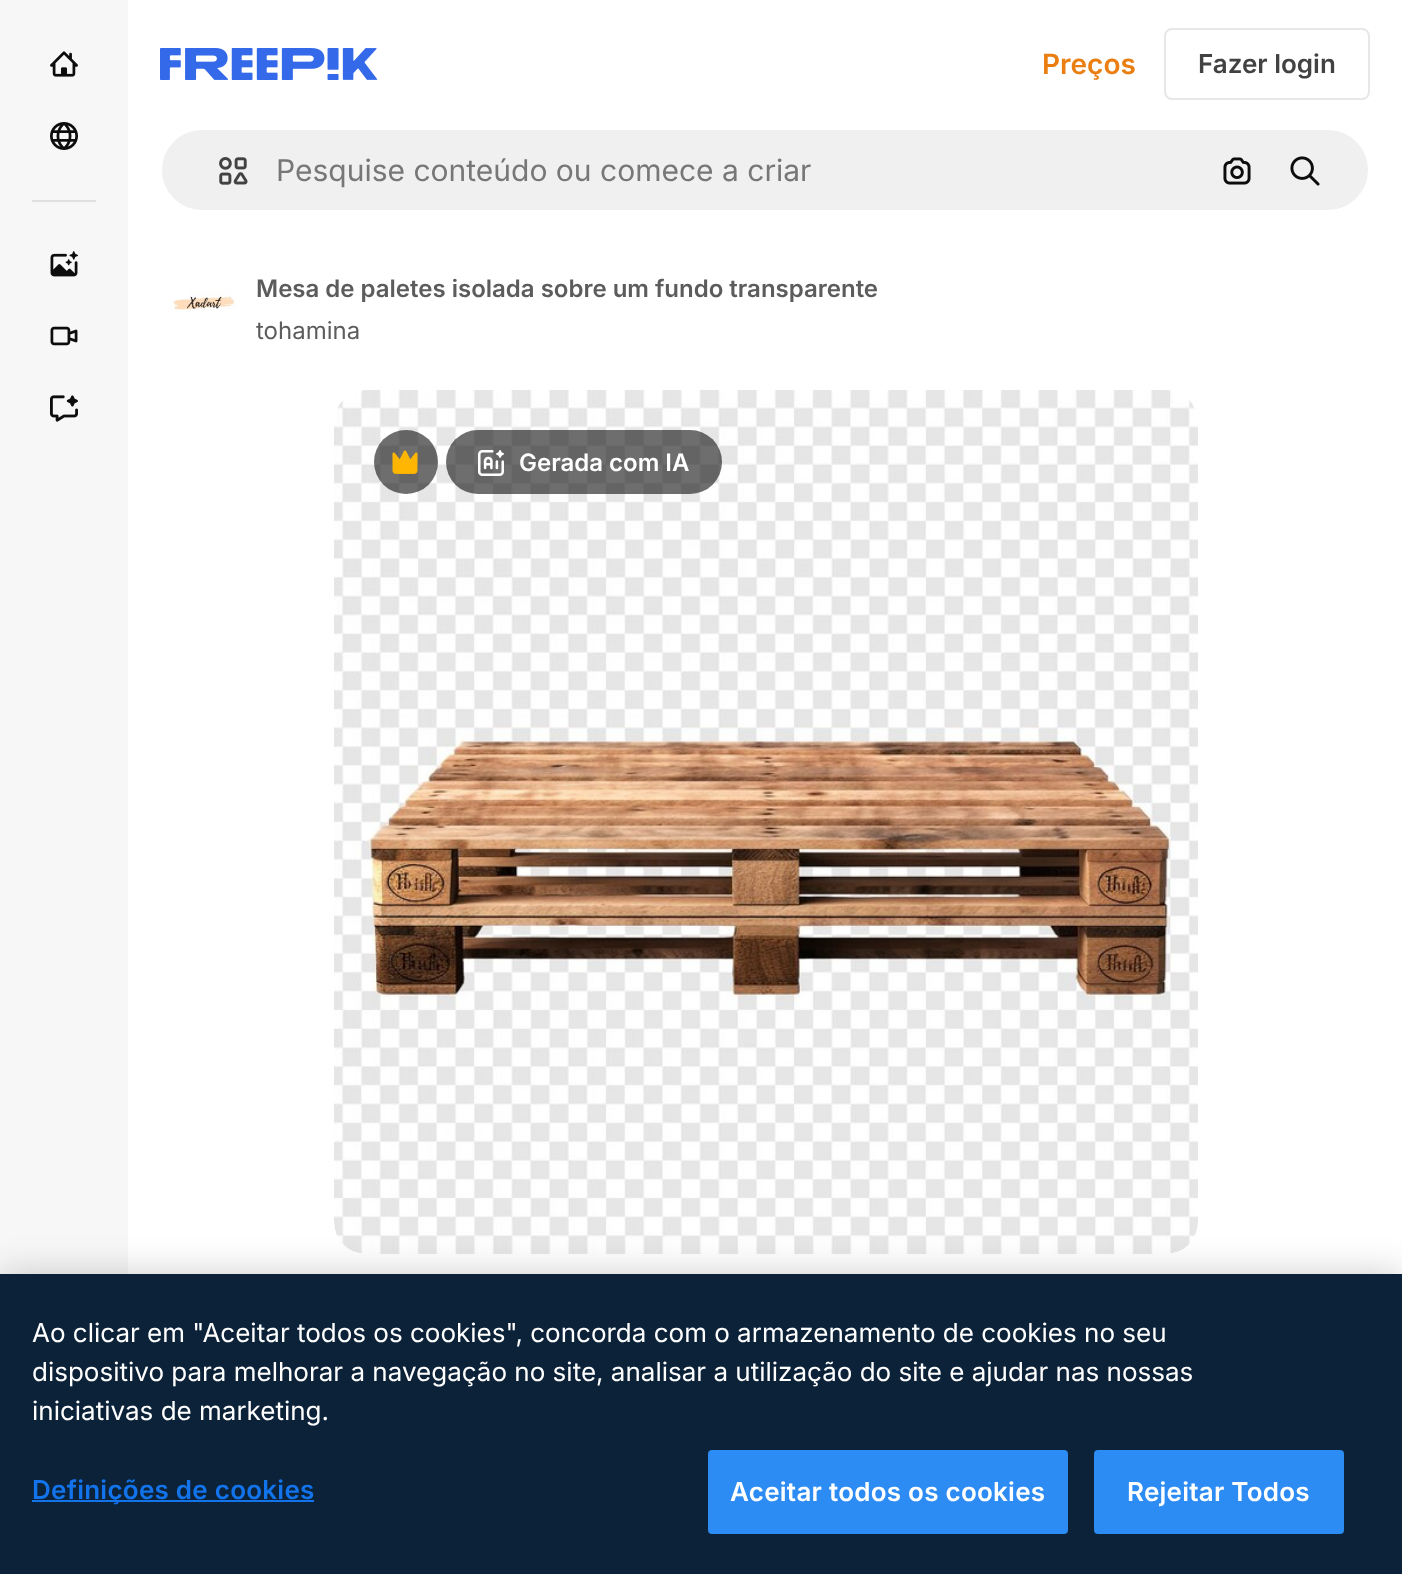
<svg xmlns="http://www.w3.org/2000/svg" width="1402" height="1574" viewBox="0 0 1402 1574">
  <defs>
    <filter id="blur1" x="-50%" y="-200%" width="200%" height="500%"><feGaussianBlur stdDeviation="18"/></filter>
  </defs>
  <rect width="100%" height="100%" fill="#ffffff"/>
  <rect x="0" y="0" width="128" height="1274" fill="#f7f7f7"/>
  <image x="50" y="51" width="28" height="26" href="img1.png"/>
  <image x="50" y="122" width="28" height="28" href="img2.png"/>
  <rect x="32" y="200" width="64" height="2" fill="#e0e0e0"/>
  <image x="50" y="251" width="28" height="26" href="img3.png"/>
  <image x="50" y="326" width="28" height="20" href="img4.png"/>
  <image x="50" y="395" width="28" height="27" href="img5.png"/>
  <image x="160" y="48" width="218" height="32" href="img6.png"/>
  <text x="1042" y="74" font-family="Inter" font-size="28" font-weight="600" fill="#ea7e11">Preços</text>
  <rect x="1165" y="29" width="204" height="70" rx="7" fill="none" stroke="#e7e7e7" stroke-width="2"/>
  <text x="1198" y="73" font-family="Inter" font-size="26" font-weight="600" fill="#424242">Fazer login</text>
  <rect x="161" y="129" width="1208" height="82" rx="41" fill="#f0f0f0" stroke="#ffffff" stroke-width="2"/>
  <image x="219" y="157" width="29" height="28" href="img7.png"/>
  <text x="276" y="181" font-family="Inter" font-size="30" fill="#777777">Pesquise conteúdo ou comece a criar</text>
  <image x="1223" y="157" width="28" height="28" href="img8.png"/>
  <image x="1290" y="156" width="30" height="30" href="img9.png"/>
  <image x="171" y="290" width="68" height="20" href="img10.png"/>
  <text x="256" y="297" font-family="Inter" font-size="24" font-weight="600" fill="#5c5c5c">Mesa de paletes isolada sobre um fundo transparente</text>
  <text x="256" y="339" font-family="Inter" font-size="24" fill="#5c5c5c">tohamina</text>
  <image x="334" y="390" width="864" height="864" href="img11.png"/>
  <circle cx="406" cy="462" r="32" fill="#0d0d0d" fill-opacity="0.6"/>
  <image x="392" y="450" width="26" height="24" href="img12.png"/>
  <rect x="446" y="430" width="276" height="64" rx="32" fill="#0d0d0d" fill-opacity="0.6"/>
  <image x="478" y="450" width="26" height="26" href="img13.png"/>
  <text x="519" y="471" font-family="Inter" font-size="24" font-weight="600" fill="#ffffff">Gerada com IA</text>
  <rect x="0" y="1274" width="1402" height="300" fill="#000000" fill-opacity="0.2" filter="url(#blur1)"/>
  <rect x="0" y="1274" width="1402" height="300" fill="#0b2239"/>
  <text x="32" y="1342" font-family="Inter" font-size="26" fill="#ffffff">Ao clicar em "Aceitar todos os cookies", concorda com o armazenamento de cookies no seu</text>
  <text x="32" y="1381" font-family="Inter" font-size="26" fill="#ffffff">dispositivo para melhorar a navegação no site, analisar a utilização do site e ajudar nas nossas</text>
  <text x="32" y="1420" font-family="Inter" font-size="26" fill="#ffffff">iniciativas de marketing.</text>
  <rect x="32" y="1500" width="282" height="2" fill="#1273eb"/>
  <text x="32" y="1499" font-family="Inter" font-size="26" font-weight="600" letter-spacing="0.25" fill="#1273eb">Definições de cookies</text>
  <rect x="709" y="1451" width="358" height="82" rx="3" fill="#2c8cf4" stroke="#2c8cf4" stroke-width="2"/>
  <text x="730" y="1501" font-family="Inter" font-size="26" font-weight="600" letter-spacing="0.25" fill="#ffffff">Aceitar todos os cookies</text>
  <rect x="1095" y="1451" width="248" height="82" rx="3" fill="#2c8cf4" stroke="#2c8cf4" stroke-width="2"/>
  <text x="1127" y="1501" font-family="Inter" font-size="26" font-weight="600" letter-spacing="0.25" fill="#ffffff">Rejeitar Todos</text>
</svg>
